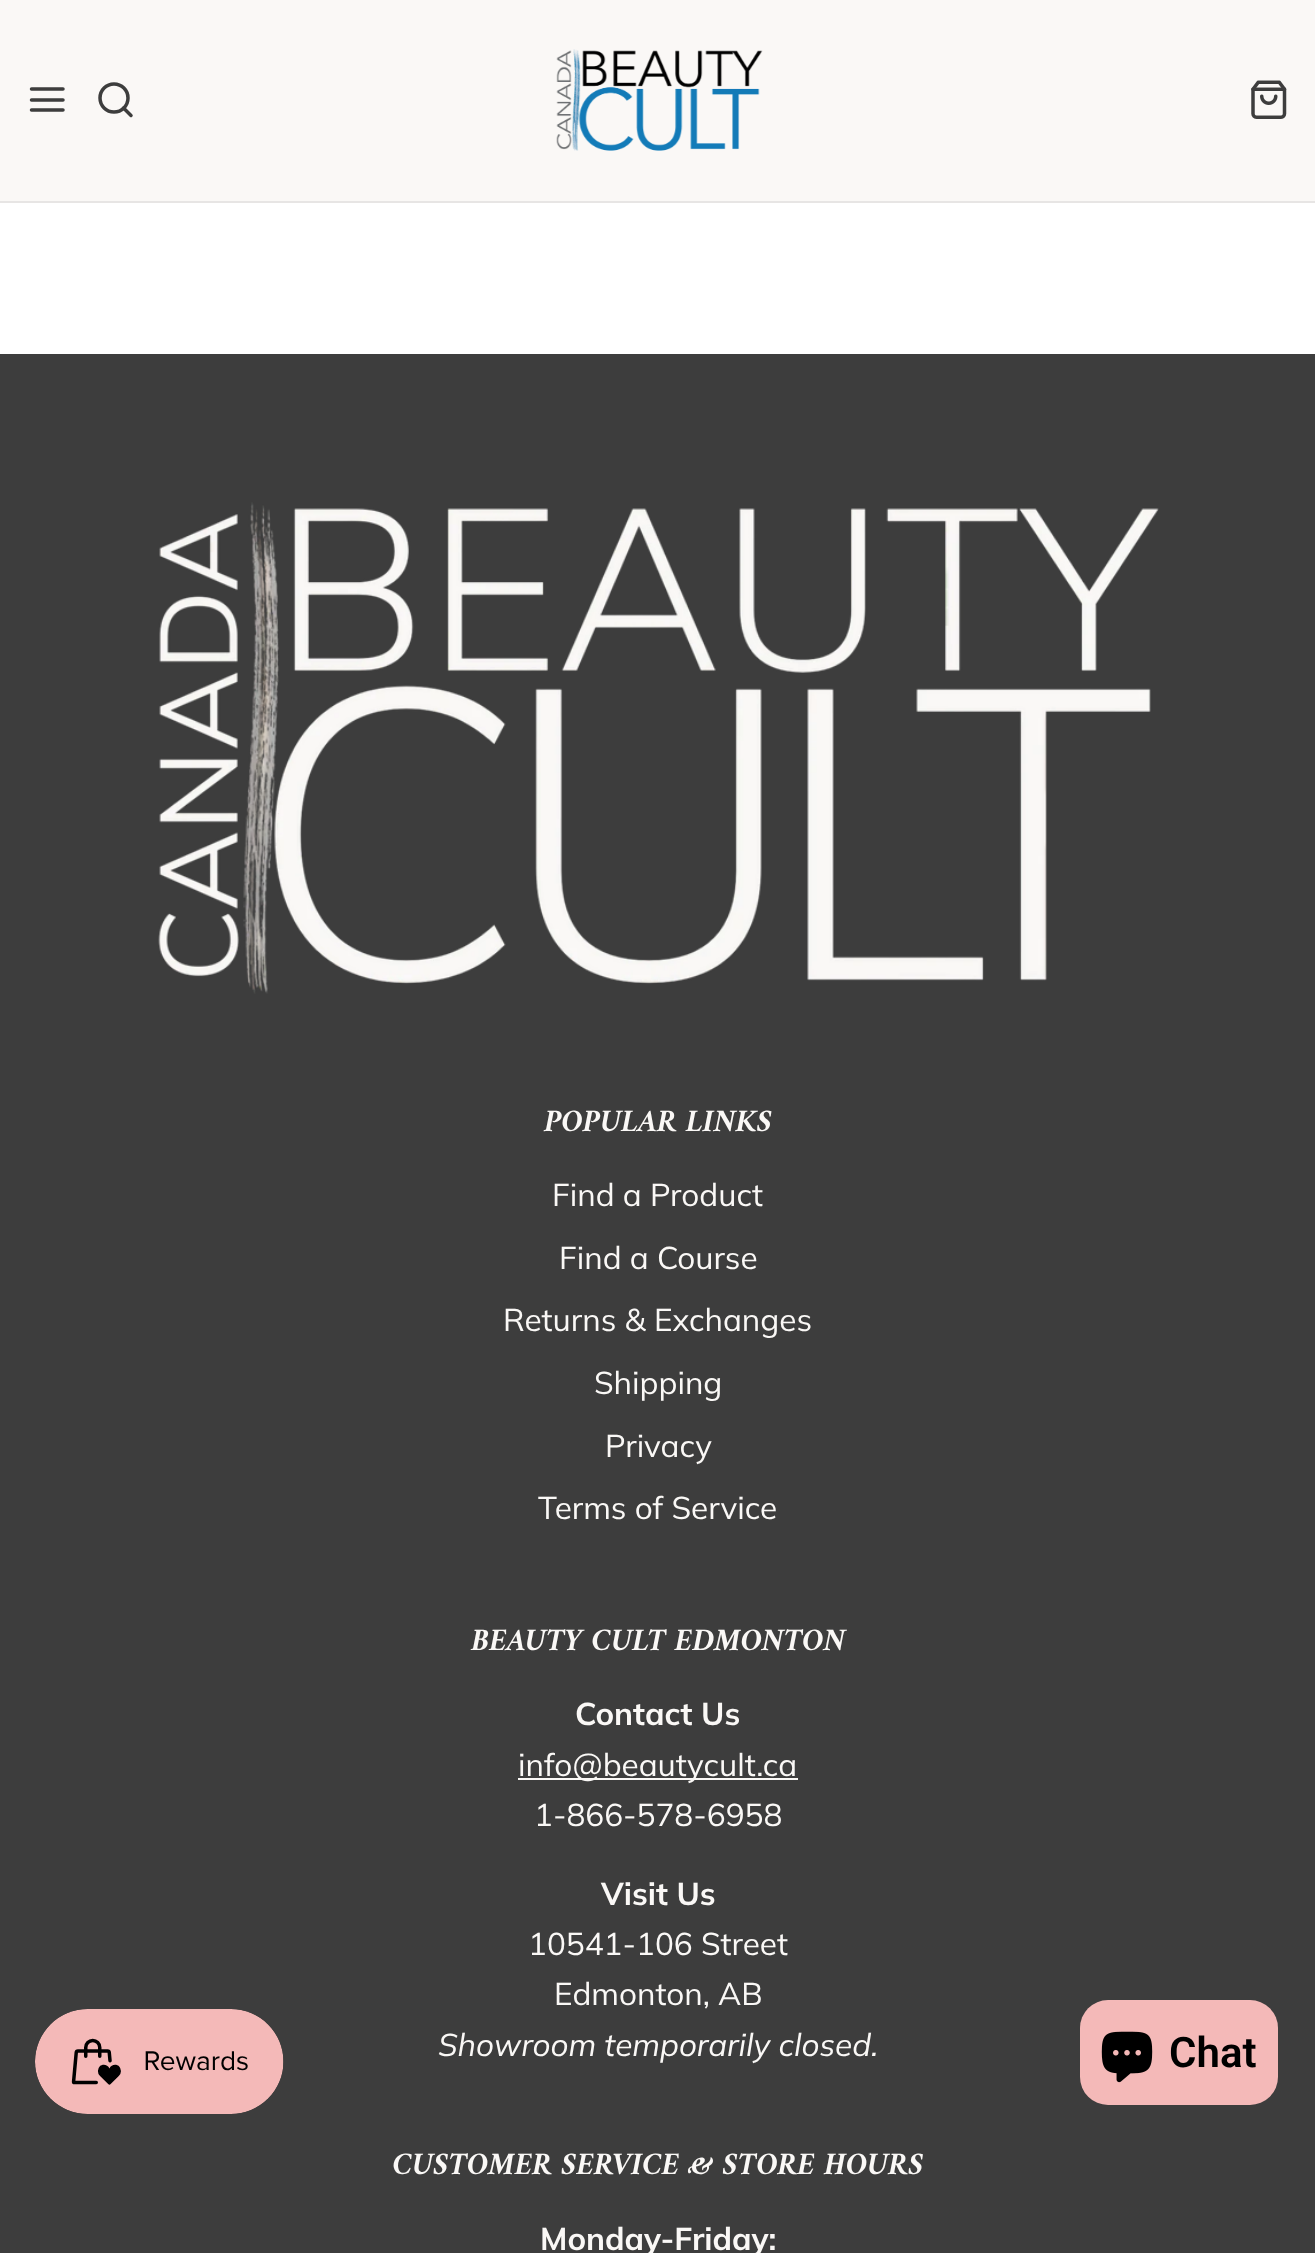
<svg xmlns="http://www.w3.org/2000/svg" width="1315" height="2253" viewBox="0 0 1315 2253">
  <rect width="100%" height="100%" fill="#ffffff"/>
  <rect x="0" y="354" width="1315" height="1899" fill="#3d3d3d"/>
  <image x="35" y="2009" width="249" height="105" href="img1.png"/>
  <rect x="0" y="0" width="1315" height="201" fill="#faf8f6"/>
  <rect x="0" y="201" width="1315" height="2" fill="#e7e5e4"/>
  <path d="M31.5 100H63M31.5 89H63M31.5 110H63" fill="none" stroke="#3d3d3d" stroke-width="3.5" stroke-linecap="round" stroke-linejoin="round"/>
  <circle cx="114" cy="98" r="14" fill="none" stroke="#3d3d3d" stroke-width="3.5"/>
  <path d="M131 115.5L123.5 108" fill="none" stroke="#3d3d3d" stroke-width="3.5" stroke-linecap="round" stroke-linejoin="round"/>
  <image x="556" y="49" width="207" height="102" href="img2.png"/>
  <image x="1251" y="80" width="36" height="39" href="img3.png"/>
  <image x="158" y="502" width="1001" height="492" href="img4.png"/>
  <text x="544" y="1131" font-family="Amiri" font-size="31.5" font-weight="bold" font-style="italic" fill="#faf8f6">POPULAR LINKS</text>
  <text x="552" y="1206" font-family="Muli" font-size="31.5" fill="#faf8f6">Find a Product</text>
  <text x="559" y="1269" font-family="Muli" font-size="31.5" fill="#faf8f6">Find a Course</text>
  <text x="503" y="1331" font-family="Muli" font-size="31.5" fill="#faf8f6">Returns &amp; Exchanges</text>
  <text x="594" y="1394" font-family="Muli" font-size="31.5" fill="#faf8f6">Shipping</text>
  <text x="605" y="1457" font-family="Muli" font-size="31.5" fill="#faf8f6">Privacy</text>
  <text x="538" y="1519" font-family="Muli" font-size="31.5" fill="#faf8f6">Terms of Service</text>
  <text x="471" y="1650" font-family="Amiri" font-size="31.5" font-weight="bold" font-style="italic" fill="#faf8f6">BEAUTY CULT EDMONTON</text>
  <text x="575" y="1725" font-family="Muli" font-size="31.5" font-weight="bold" fill="#faf8f6">Contact Us</text>
  <rect x="518" y="1778" width="280" height="2" fill="#faf8f6"/>
  <text x="518" y="1776" font-family="Muli" font-size="31.5" fill="#faf8f6">info@beautycult.ca</text>
  <text x="534" y="1826" font-family="Muli" font-size="31.5" fill="#faf8f6">1-866-578-6958</text>
  <text x="601" y="1905" font-family="Muli" font-size="31.5" font-weight="bold" fill="#faf8f6">Visit Us</text>
  <text x="528" y="1955" font-family="Muli" font-size="31.5" fill="#faf8f6">10541-106 Street</text>
  <text x="554" y="2005" font-family="Muli" font-size="31.5" fill="#faf8f6">Edmonton, AB</text>
  <text x="438" y="2056" font-family="Muli" font-size="31.5" font-style="italic" fill="#faf8f6">Showroom temporarily closed.</text>
  <text x="392" y="2174" font-family="Amiri" font-size="31.5" font-weight="bold" font-style="italic" fill="#faf8f6">CUSTOMER SERVICE &amp; STORE HOURS</text>
  <text x="540" y="2250" font-family="Muli" font-size="31.5" font-weight="bold" fill="#faf8f6">Monday-Friday:</text>
  <rect x="1080" y="2000" width="198" height="105" rx="28" fill="#f4b9b8"/>
  <image x="1101" y="2031" width="52" height="52" href="img5.png"/>
  <text x="1169" y="2067" font-family="Roboto" font-size="42" font-weight="600" fill="#000000">Chat</text>
</svg>
